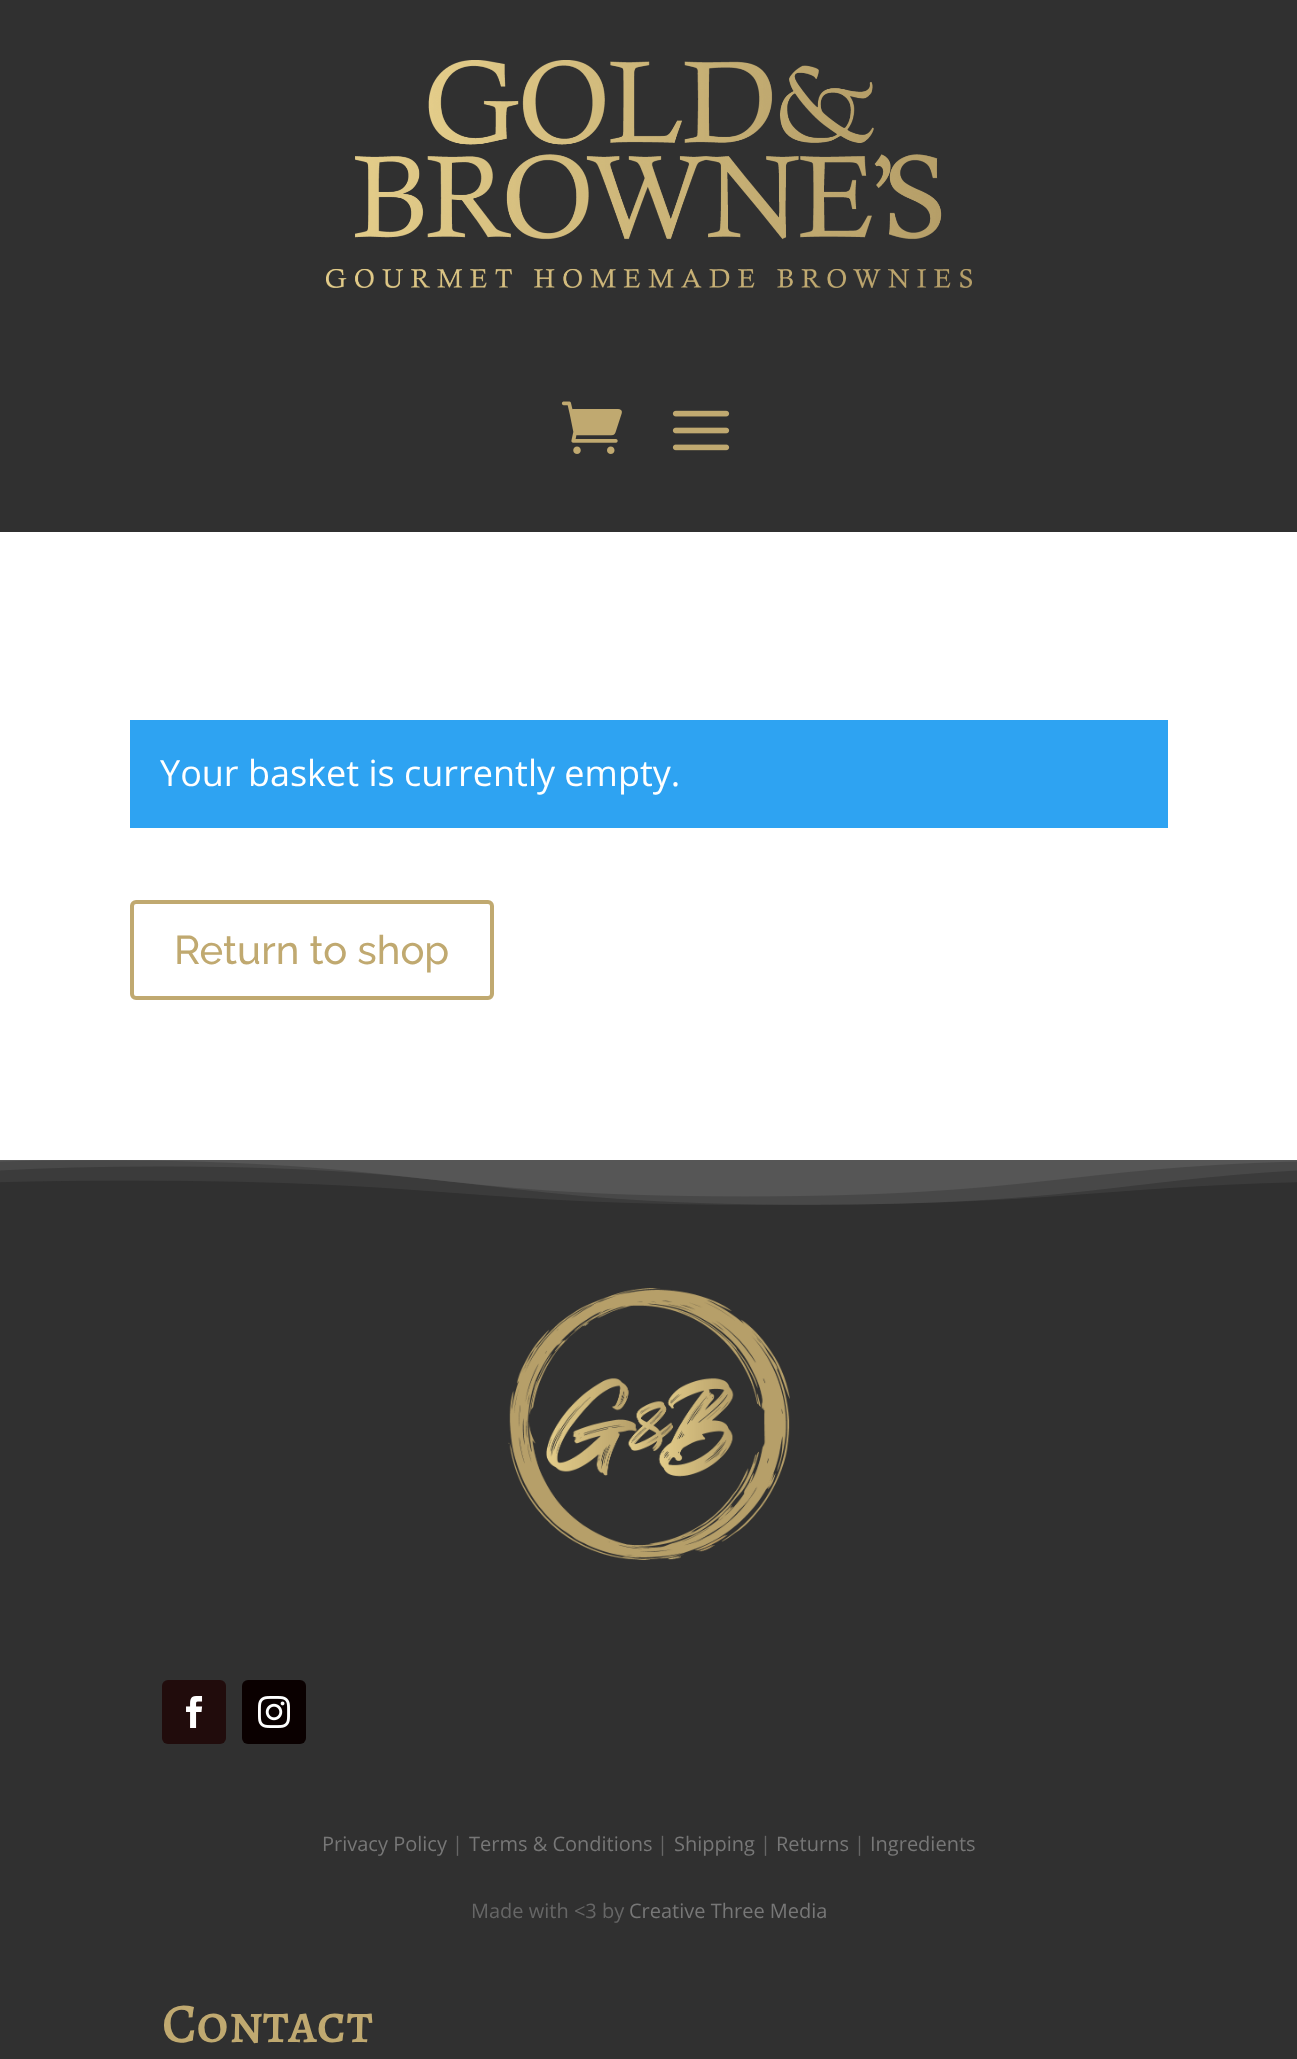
<svg xmlns="http://www.w3.org/2000/svg" width="1297" height="2059" viewBox="0 0 1297 2059">
  <rect width="100%" height="100%" fill="#ffffff"/>
  <rect x="0" y="0" width="1297" height="532" fill="#303030"/>
  <image x="326" y="60" width="646" height="228" href="img1.png"/>
  <image x="561" y="401" width="61" height="53" href="img2.png"/>
  <image x="672" y="410" width="58" height="41" href="img3.png"/>
  <rect x="130" y="720" width="1038" height="108" fill="#2ea3f2"/>
  <text x="160" y="786" font-family="Open Sans" font-size="36" fill="#ffffff">Your basket is currently empty.</text>
  <rect x="132" y="902" width="360" height="96" rx="4" fill="none" stroke="#c0a970" stroke-width="4"/>
  <text x="174" y="964" font-family="Raleway" font-size="40" font-weight="100" fill="#c0a970">Return to shop</text>
  <rect x="0" y="1160" width="1297" height="899" fill="#303030"/>
  <image x="0" y="1160" width="1297" height="45" href="img4.png"/>
  <image x="508" y="1288" width="282" height="272" href="img5.png"/>
  <rect x="162" y="1680" width="64" height="64" rx="6" fill="#210c0c"/>
  <image x="186" y="1696" width="17" height="32" href="img6.png"/>
  <rect x="242" y="1680" width="64" height="64" rx="6" fill="#0a0000"/>
  <image x="258" y="1696" width="32" height="32" href="img7.png"/>
  <text x="322" y="1851" font-family="Open Sans" font-size="20" fill="#777777">Privacy Policy</text>
  <text x="452" y="1851" font-family="Open Sans" font-size="20" fill="#666666">|</text>
  <text x="469" y="1851" font-family="Open Sans" font-size="20" fill="#777777">Terms &amp; Conditions</text>
  <text x="657" y="1851" font-family="Open Sans" font-size="20" fill="#666666">|</text>
  <text x="674" y="1851" font-family="Open Sans" font-size="20" fill="#777777">Shipping</text>
  <text x="760" y="1851" font-family="Open Sans" font-size="20" fill="#666666">|</text>
  <text x="776" y="1851" font-family="Open Sans" font-size="20" fill="#777777">Returns</text>
  <text x="854" y="1851" font-family="Open Sans" font-size="20" fill="#666666">|</text>
  <text x="870" y="1851" font-family="Open Sans" font-size="20" fill="#777777">Ingredients</text>
  <text x="471" y="1918" font-family="Open Sans" font-size="20" fill="#666666">Made with &lt;3 by</text>
  <text x="629" y="1918" font-family="Open Sans" font-size="20" fill="#777777">Creative Three Media</text>
  <text x="162" y="2042" font-family="Alegreya SC" font-size="56" font-weight="500" fill="#c0a970">Contact</text>
</svg>
